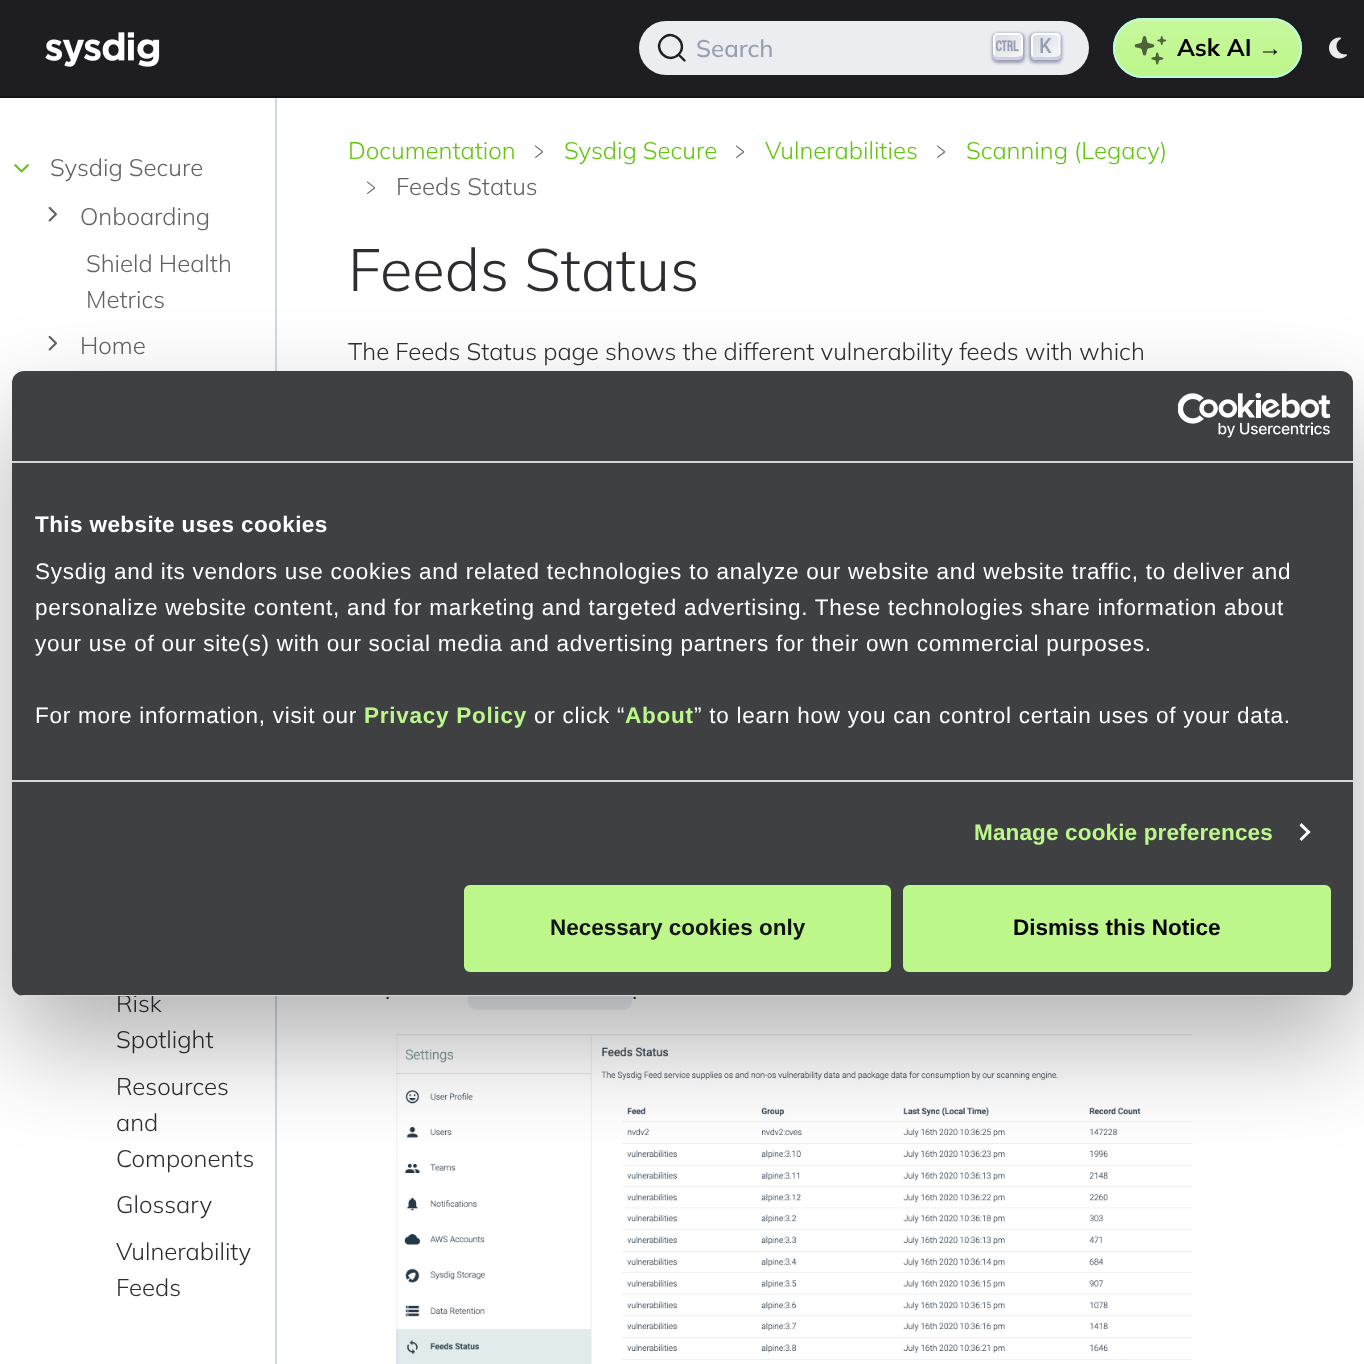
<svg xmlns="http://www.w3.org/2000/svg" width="1364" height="1364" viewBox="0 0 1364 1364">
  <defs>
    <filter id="blur1" x="-50%" y="-200%" width="200%" height="500%"><feGaussianBlur stdDeviation="1.5"/></filter>
    <linearGradient id="g1" gradientUnits="userSpaceOnUse" x1="994" y1="32" x2="1022" y2="61"><stop offset="0" stop-color="#d5dbe4"/><stop offset="1" stop-color="#f8f8f8"/></linearGradient>
    <linearGradient id="g2" gradientUnits="userSpaceOnUse" x1="1031" y1="32" x2="1060" y2="61"><stop offset="0" stop-color="#d5dbe4"/><stop offset="1" stop-color="#f8f8f8"/></linearGradient>
    <clipPath id="clip1"><rect x="1113" y="18" width="189" height="60" rx="30"/></clipPath>
    <linearGradient id="g3" gradientUnits="userSpaceOnUse" x1="1208" y1="19" x2="1208" y2="77"><stop offset="0" stop-color="#ffffff" stop-opacity="0.15"/><stop offset="1" stop-color="#ffffff" stop-opacity="0"/></linearGradient>
    <filter id="blur2" x="-50%" y="-200%" width="200%" height="500%"><feGaussianBlur stdDeviation="51"/></filter>
    <clipPath id="clip2"><rect x="12" y="371" width="1341" height="625" rx="12"/></clipPath>
  </defs>
  <rect width="100%" height="100%" fill="#ffffff"/>
  <rect x="0" y="96" width="1364" height="2" fill="#121217"/>
  <rect x="0" y="0" width="1364" height="96" fill="#1e1e22"/>
  <image x="45" y="32" width="115" height="35" href="img1.png"/>
  <rect x="639" y="21" width="450" height="54" rx="27" fill="#ebedf0"/>
  <path d="M678.5 54.5L684.5 60.5L678.5 54.5C668 65 652 49 662.5 38.5C673 28 689 44 678.5 54.5Z" fill="none" stroke="#1c1e21" stroke-width="2.4" stroke-linecap="round" stroke-linejoin="round"/>
  <text x="696" y="57" font-family="Mulish" font-size="24" font-weight="500" fill="#969faf">Search</text>
  <rect x="992" y="33" width="33" height="30" rx="6" fill="#1e235a" fill-opacity="0.4" filter="url(#blur1)"/>
  <rect x="994" y="34" width="28" height="25" rx="4" fill="url(#g1)" stroke="#ffffff" stroke-width="2"/>
  <path d="M1023 53C1022.5 55.5 1020.5 57 1015 57H998C995 57 993.5 55 993 52.5C993 59 994.5 60 1001.5 60H1014.5C1021 60 1023 59.5 1023 53Z" fill="#cdcde6"/>
  <image x="996" y="40" width="23" height="12" href="img2.png"/>
  <rect x="1029" y="33" width="33" height="30" rx="6" fill="#1e235a" fill-opacity="0.4" filter="url(#blur1)"/>
  <rect x="1032" y="34" width="28" height="25" rx="4" fill="url(#g2)" stroke="#ffffff" stroke-width="2"/>
  <path d="M1031 54V55C1031 58 1033 60 1036 60H1056C1059 60 1061 58 1061 55V38C1061 37 1061 36.5 1060.5 35.5L1060 44.5L1060.5 52.5L1059.5 55C1059 56 1058 56 1057 56.5C1052.5 57.5 1045.5 57 1040.5 57H1033.5C1032.5 56.5 1031.5 55.5 1031 54Z" fill="#cdcde6"/>
  <text x="1039" y="53" font-family="Roboto Mono" font-size="21" font-weight="500" fill="#969faf">K</text>
  <rect x="1113" y="18" width="189" height="60" rx="30" fill="#bdf78b"/>
  <g clip-path="url(#clip1)">
    <rect x="1113" y="20" width="189" height="49" fill="url(#g3)"/>
  </g>
  <path d="M1143 21H1272C1288 21 1300 34 1300 50C1300 56 1298 61 1295 66C1299 61 1301 55 1301 48C1301 33 1288 20 1272 20H1144C1134 20 1125 25 1120 32C1125 25 1134 21 1143 21Z" fill="#ffffff" fill-opacity="0.15"/>
  <rect x="1114" y="19" width="187" height="58" rx="29" fill="none" stroke="#bdfbdd" stroke-width="2"/>
  <image x="1134" y="36" width="33" height="29" href="img3.png"/>
  <text x="1177" y="56" font-family="Mulish" font-size="24" font-weight="bold" fill="#000000">Ask AI</text>
  <text x="1258" y="56" font-family="Liberation Sans" font-size="24" font-weight="bold" fill="#000000">→</text>
  <image x="1329" y="37" width="18" height="22" href="img4.png"/>
  <rect x="275" y="98" width="2" height="1266" fill="#d0d9e0"/>
  <image x="14" y="164" width="15" height="9" href="img5.png"/>
  <text x="50" y="176" font-family="Mulish" font-size="24" font-weight="300" fill="#606264">Sysdig Secure</text>
  <image x="48" y="206" width="9" height="16" href="img6.png"/>
  <text x="80" y="225" font-family="Mulish" font-size="24" font-weight="300" fill="#606264">Onboarding</text>
  <text x="86" y="272" font-family="Mulish" font-size="24" font-weight="300" fill="#606264">Shield Health</text>
  <text x="86" y="308" font-family="Mulish" font-size="24" font-weight="300" fill="#606264">Metrics</text>
  <image x="48" y="335" width="9" height="16" href="img6.png"/>
  <text x="80" y="354" font-family="Mulish" font-size="24" font-weight="300" fill="#606264">Home</text>
  <text x="116" y="1012" font-family="Mulish" font-size="24" font-weight="300" fill="#2b2d30">Risk</text>
  <text x="116" y="1048" font-family="Mulish" font-size="24" font-weight="300" fill="#2b2d30">Spotlight</text>
  <text x="116" y="1095" font-family="Mulish" font-size="24" font-weight="300" fill="#2b2d30">Resources</text>
  <text x="116" y="1131" font-family="Mulish" font-size="24" font-weight="300" fill="#2b2d30">and</text>
  <text x="116" y="1167" font-family="Mulish" font-size="24" font-weight="300" fill="#2b2d30">Components</text>
  <text x="116" y="1213" font-family="Mulish" font-size="24" font-weight="300" fill="#2b2d30">Glossary</text>
  <text x="116" y="1260" font-family="Mulish" font-size="24" font-weight="300" fill="#2b2d30">Vulnerability</text>
  <text x="116" y="1296" font-family="Mulish" font-size="24" font-weight="300" fill="#2b2d30">Feeds</text>
  <text x="348" y="159" font-family="Mulish" font-size="24" font-weight="300" fill="#61c60d">Documentation</text>
  <text x="528" y="159" font-family="WenQuanYi Zen Hei" font-size="24" font-weight="500" fill="#606264">﹥</text>
  <text x="564" y="159" font-family="Mulish" font-size="24" font-weight="300" fill="#61c60d">Sysdig Secure</text>
  <text x="729" y="159" font-family="WenQuanYi Zen Hei" font-size="24" font-weight="500" fill="#606264">﹥</text>
  <text x="765" y="159" font-family="Mulish" font-size="24" font-weight="300" fill="#61c60d">Vulnerabilities</text>
  <text x="930" y="159" font-family="WenQuanYi Zen Hei" font-size="24" font-weight="500" fill="#606264">﹥</text>
  <text x="966" y="159" font-family="Mulish" font-size="24" font-weight="300" fill="#61c60d">Scanning (Legacy)</text>
  <text x="360" y="195" font-family="WenQuanYi Zen Hei" font-size="24" font-weight="500" fill="#606264">﹥</text>
  <text x="396" y="195" font-family="Mulish" font-size="24" font-weight="300" fill="#606264">Feeds Status</text>
  <text x="348" y="291" font-family="Mulish" font-size="59.5" font-weight="300" fill="#2b2d30">Feeds Status</text>
  <text x="348" y="360" font-family="Mulish" font-size="24" font-weight="300" fill="#2b2d30">The Feeds Status page shows the different vulnerability feeds with which</text>
  <text x="385" y="999" font-family="Mulish" font-size="24" font-weight="300" fill="#2b2d30">.</text>
  <rect x="468" y="974" width="164" height="36" rx="9" fill="#edf0f3"/>
  <text x="632" y="999" font-family="Mulish" font-size="24" font-weight="300" fill="#2b2d30">.</text>
  <image x="396" y="1034" width="797" height="330" href="img7.png"/>
  <rect x="12" y="419" width="1341" height="625" rx="12" fill="#000000" fill-opacity="0.3" filter="url(#blur2)"/>
  <rect x="12" y="371" width="1341" height="625" rx="12" fill="#3e4042"/>
  <rect x="12" y="461" width="1341" height="2" fill="#d6d6d6"/>
  <image x="1178" y="393" width="153" height="45" href="img8.png"/>
  <rect x="12" y="780" width="1341" height="2" fill="#d6d6d6"/>
  <text x="35" y="532" font-family="Liberation Sans" font-size="22.5" font-weight="bold" letter-spacing="0.4" fill="#ffffff">This website uses cookies</text>
  <text x="35" y="579" font-family="Liberation Sans" font-size="22.5" letter-spacing="0.75" fill="#ffffff">Sysdig and its vendors use cookies and related technologies to analyze our website and website traffic, to deliver and</text>
  <text x="35" y="615" font-family="Liberation Sans" font-size="22.5" letter-spacing="0.75" fill="#ffffff">personalize website content, and for marketing and targeted advertising. These technologies share information about</text>
  <text x="35" y="651" font-family="Liberation Sans" font-size="22.5" letter-spacing="0.75" fill="#ffffff">your use of our site(s) with our social media and advertising partners for their own commercial purposes.</text>
  <text x="35" y="723" font-family="Liberation Sans" font-size="22.5" letter-spacing="0.75" fill="#ffffff">For more information, visit our</text>
  <text x="364" y="723" font-family="Liberation Sans" font-size="22.5" font-weight="bold" letter-spacing="0.75" fill="#bdf78b">Privacy Policy</text>
  <text x="534" y="723" font-family="Liberation Sans" font-size="22.5" letter-spacing="0.75" fill="#ffffff">or click “</text>
  <text x="625" y="723" font-family="Liberation Sans" font-size="22.5" font-weight="bold" letter-spacing="0.75" fill="#bdf78b">About</text>
  <text x="694" y="723" font-family="Liberation Sans" font-size="22.5" letter-spacing="0.75" fill="#ffffff">” to learn how you can control certain uses of your data.</text>
  <text x="974" y="840" font-family="Liberation Sans" font-size="22.5" font-weight="bold" letter-spacing="0.15" fill="#bdf78b">Manage cookie preferences</text>
  <path d="M1301.5 823L1310.5 832L1308.5 834L1299.5 825.5Z" fill="#ffffff"/>
  <path d="M1308.5 830L1310.5 832L1301.5 841L1299.5 839Z" fill="#ffffff"/>
  <g clip-path="url(#clip2)">
    <rect x="12" y="995" width="1341" height="1" fill="#d6d6d6"/>
  </g>
  <rect x="465.5" y="886.5" width="424" height="84" rx="4.5" fill="#bdf78b" stroke="#bdf78b" stroke-width="3"/>
  <text x="550" y="935" font-family="Liberation Sans" font-size="22.5" font-weight="bold" fill="#141414">Necessary cookies only</text>
  <rect x="904.5" y="886.5" width="425" height="84" rx="4.5" fill="#bdf78b" stroke="#bdf78b" stroke-width="3"/>
  <text x="1013" y="935" font-family="Liberation Sans" font-size="22.5" font-weight="bold" fill="#000000">Dismiss this Notice</text>
</svg>
